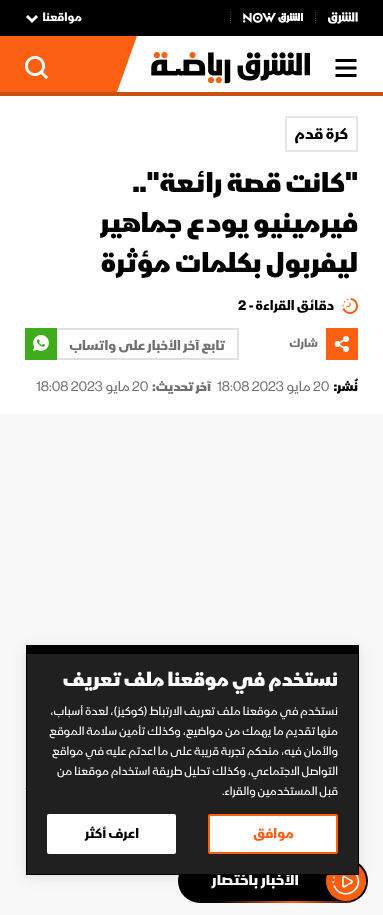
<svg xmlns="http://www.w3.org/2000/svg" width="383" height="915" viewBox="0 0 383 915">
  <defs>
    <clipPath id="clip1"><rect x="178" y="859" width="190" height="44" rx="22"/></clipPath>
    <linearGradient id="g1" gradientUnits="userSpaceOnUse" x1="216" y1="902" x2="368" y2="902"><stop offset="0" stop-color="#fb6012" stop-opacity="0"/><stop offset="0.5" stop-color="#fb6012"/><stop offset="1" stop-color="#fb6012" stop-opacity="0"/></linearGradient>
    <filter id="blur1" x="-50%" y="-200%" width="200%" height="500%"><feGaussianBlur stdDeviation="7"/></filter>
  </defs>
  <rect width="100%" height="100%" fill="#f8f8f8"/>
  <rect x="0" y="36" width="137" height="56" fill="#fb6012"/>
  <rect x="0" y="92" width="383" height="4" fill="#ca4f12"/>
  <rect x="0" y="0" width="383" height="36" fill="#000000"/>
  <path d="M315.5 12V24" fill="none" stroke="#404040" stroke-dasharray="1 1"/>
  <image x="328" y="12" width="30" height="12" href="img1.png"/>
  <path d="M230.5 12V24" fill="none" stroke="#404040" stroke-dasharray="1 1"/>
  <image x="243" y="12" width="60" height="11" href="img2.png"/>
  <text x="82" y="21" font-family="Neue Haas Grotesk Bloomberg" font-size="12" font-weight="bold" direction="rtl" fill="#ffffff">مواقعنا</text>
  <image x="26" y="15" width="12" height="8" href="img3.png"/>
  <path d="M137 36H369L349 92H117Z" fill="#ffffff"/>
  <rect x="349" y="36" width="34" height="56" fill="#ffffff"/>
  <image x="335" y="59" width="22" height="18" href="img4.png"/>
  <image x="151" y="52" width="159" height="32" href="img5.png"/>
  <image x="25" y="56" width="24" height="24" href="img6.png"/>
  <rect x="0" y="96" width="383" height="318" fill="#ffffff"/>
  <rect x="286" y="117" width="71" height="34" fill="none" stroke="#e6e6e6" stroke-width="2"/>
  <text x="348" y="139" font-family="Neue Haas Grotesk Bloomberg" font-size="16" font-weight="bold" direction="rtl" fill="#000000">كرة قدم</text>
  <text x="358" y="192" font-family="Neue Haas Grotesk Bloomberg" font-size="28" font-weight="900" direction="rtl" fill="#000000">"كانت قصة رائعة"..</text>
  <text x="358" y="232" font-family="Neue Haas Grotesk Bloomberg" font-size="28" font-weight="900" direction="rtl" fill="#000000">فيرمينيو يودع جماهير</text>
  <text x="358" y="272" font-family="Neue Haas Grotesk Bloomberg" font-size="28" font-weight="900" direction="rtl" fill="#000000">ليفربول بكلمات مؤثرة</text>
  <image x="342" y="298" width="16" height="16" href="img7.png"/>
  <text x="334" y="310" font-family="Neue Haas Grotesk Bloomberg" font-size="14" font-weight="bold" direction="rtl" fill="#000000">دقائق القراءة -</text>
  <text x="238" y="310" font-family="Neue Haas Grotesk Bloomberg" font-size="14" font-weight="bold" fill="#000000">2</text>
  <rect x="326" y="328" width="32" height="32" fill="#fb6012"/>
  <image x="334" y="336" width="15" height="16" href="img8.png"/>
  <text x="318" y="347" font-family="Neue Haas Grotesk Bloomberg" font-size="12" font-weight="bold" direction="rtl" fill="#707070">شارك</text>
  <rect x="57" y="328" width="182" height="2" fill="#e0e0e0"/>
  <rect x="237" y="328" width="2" height="32" fill="#e0e0e0"/>
  <rect x="57" y="358" width="182" height="2" fill="#e0e0e0"/>
  <text x="225" y="350" font-family="Neue Haas Grotesk Bloomberg" font-size="14" font-weight="bold" direction="rtl" fill="#707070">تابع آخر الأخبار على واتساب</text>
  <rect x="25" y="328" width="32" height="32" fill="#3eac1b"/>
  <image x="33" y="335" width="16" height="16" href="img9.png"/>
  <text x="358" y="391" font-family="Neue Haas Grotesk Bloomberg" font-size="13" font-weight="900" direction="rtl" fill="#000000">نُشر:</text>
  <text x="313" y="391" font-family="Neue Haas Grotesk Bloomberg" font-size="14" fill="#707070">20</text>
  <text x="311" y="391" font-family="Neue Haas Grotesk Bloomberg" font-size="14" direction="rtl" fill="#707070">مايو</text>
  <text x="217" y="391" font-family="Neue Haas Grotesk Bloomberg" font-size="14" fill="#707070">18:08 2023</text>
  <text x="211" y="391" font-family="Neue Haas Grotesk Bloomberg" font-size="13" font-weight="900" direction="rtl" fill="#707070">آخر تحديث:</text>
  <text x="132" y="391" font-family="Neue Haas Grotesk Bloomberg" font-size="14" fill="#707070">20</text>
  <text x="130" y="391" font-family="Neue Haas Grotesk Bloomberg" font-size="14" direction="rtl" fill="#707070">مايو</text>
  <text x="36" y="391" font-family="Neue Haas Grotesk Bloomberg" font-size="14" fill="#707070">18:08 2023</text>
  <rect x="25" y="788" width="1" height="1" fill="#c0c0c0"/>
  <rect x="178" y="859" width="190" height="44" rx="22" fill="#000000"/>
  <image x="326" y="864" width="40" height="37" href="img10.png"/>
  <text x="299" y="885" font-family="Neue Haas Grotesk Bloomberg" font-size="16" font-weight="bold" direction="rtl" fill="#ffffff">الأخبار باختصار</text>
  <g clip-path="url(#clip1)">
    <rect x="216" y="901" width="138" height="2" fill="url(#g1)"/>
  </g>
  <rect x="26" y="647" width="333" height="230" fill="#000000" fill-opacity="0.1" filter="url(#blur1)"/>
  <rect x="27" y="654" width="331" height="220" fill="#202020"/>
  <rect x="27" y="646" width="331" height="8" fill="#000000"/>
  <rect x="26.5" y="645.5" width="332" height="229" fill="none" stroke="#000000"/>
  <text x="338" y="686" font-family="Neue Haas Grotesk Bloomberg" font-size="20" font-weight="900" direction="rtl" fill="#ffffff">نستخدم في موقعنا ملف تعريف</text>
  <text x="338" y="715" font-family="Neue Haas Grotesk Bloomberg" font-size="12" direction="rtl" fill="#ffffff">نستخدم في موقعنا ملف تعريف الارتباط (كوكيز)، لعدة أسباب،</text>
  <text x="338" y="735" font-family="Neue Haas Grotesk Bloomberg" font-size="12" direction="rtl" fill="#ffffff">منها تقديم ما يهمك من مواضيع، وكذلك تأمين سلامة الموقع</text>
  <text x="338" y="755" font-family="Neue Haas Grotesk Bloomberg" font-size="12" direction="rtl" fill="#ffffff">والأمان فيه، منحكم تجربة قريبة على ما اعدتم عليه في مواقع</text>
  <text x="338" y="775" font-family="Neue Haas Grotesk Bloomberg" font-size="12" direction="rtl" fill="#ffffff">التواصل الاجتماعي، وكذلك تحليل طريقة استخدام موقعنا من</text>
  <text x="338" y="795" font-family="Neue Haas Grotesk Bloomberg" font-size="12" direction="rtl" fill="#ffffff">قبل المستخدمين والقراء.</text>
  <rect x="209" y="815" width="128" height="38" rx="1" fill="#ffffff" stroke="#fb6012" stroke-width="2"/>
  <text x="294" y="838" font-family="Neue Haas Grotesk Bloomberg" font-size="14" font-weight="bold" direction="rtl" fill="#fb6012">موافق</text>
  <rect x="47" y="814" width="129" height="40" rx="2" fill="#ffffff"/>
  <text x="139" y="838" font-family="Neue Haas Grotesk Bloomberg" font-size="14" font-weight="bold" direction="rtl" fill="#000000">اعرف أكثر</text>
</svg>
